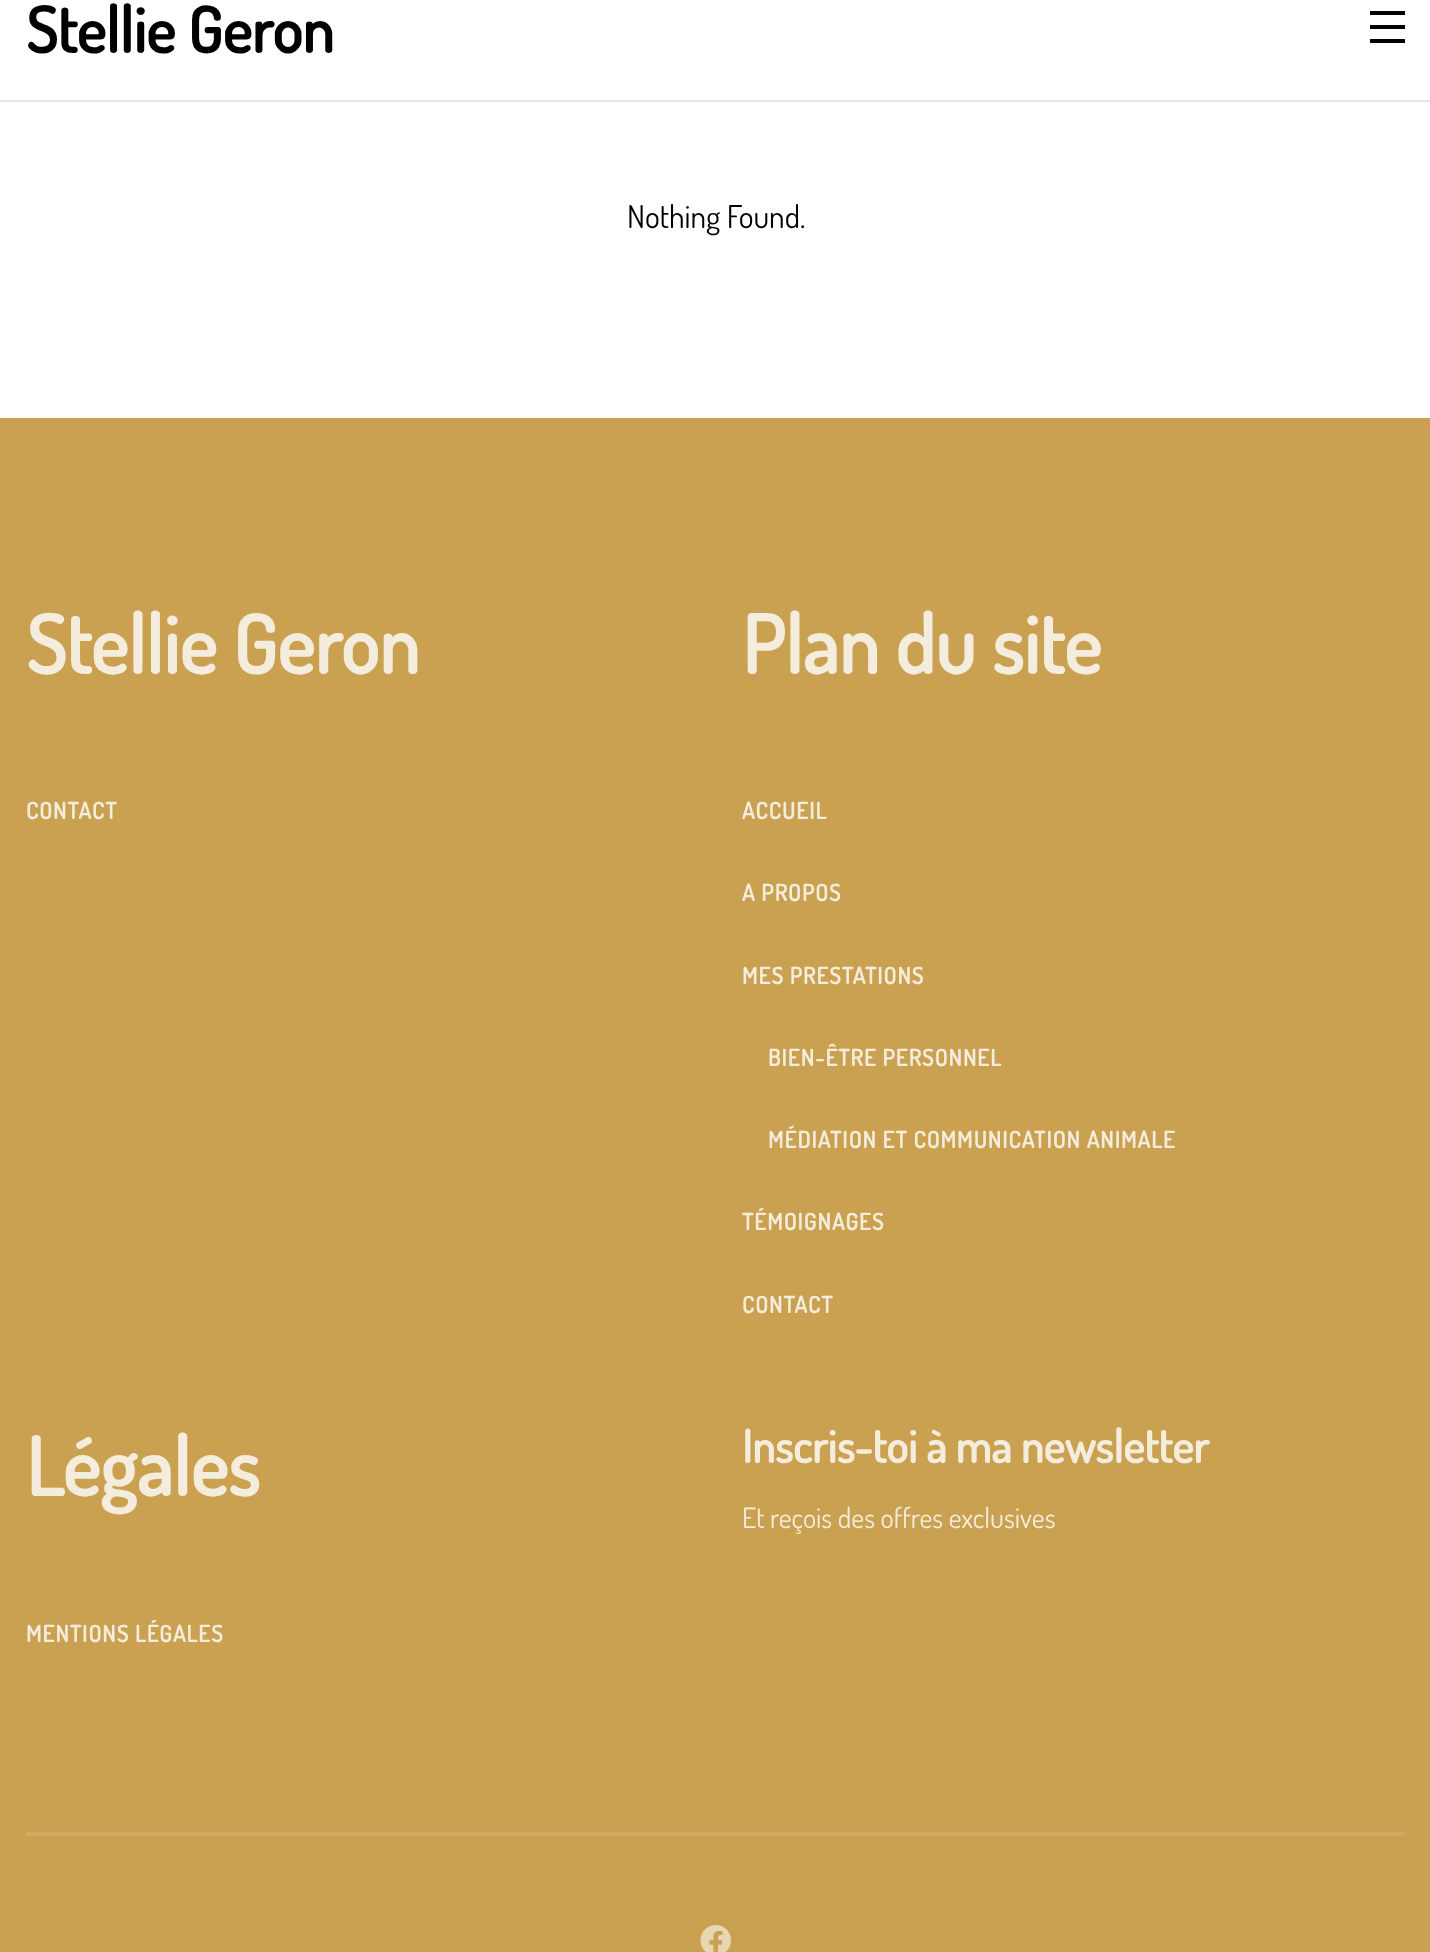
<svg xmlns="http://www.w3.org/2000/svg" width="1430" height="1952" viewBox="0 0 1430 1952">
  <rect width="100%" height="100%" fill="#ffffff"/>
  <rect x="0" y="100" width="1430" height="2" fill="#e6e6e6"/>
  <text x="26" y="53" font-family="Dosis" font-size="63" font-weight="bold" fill="#000000">Stellie Geron</text>
  <rect x="1370" y="39" width="35" height="4" fill="#000000"/>
  <rect x="1370" y="11" width="35" height="4" fill="#000000"/>
  <rect x="1370" y="25" width="35" height="4" fill="#000000"/>
  <text x="627" y="228" font-family="Dosis" font-size="31.5" fill="#000000">Nothing Found.</text>
  <rect x="0" y="418" width="1430" height="1534" fill="#c9a150"/>
  <text x="26" y="674" font-family="Dosis" font-size="80.5" font-weight="bold" fill="#f4ecdc">Stellie Geron</text>
  <text x="26" y="819" font-family="Dosis" font-size="22.75" font-weight="bold" letter-spacing="1.15" fill="#f4ecdc">CONTACT</text>
  <text x="742" y="674" font-family="Dosis" font-size="80.5" font-weight="bold" fill="#f4ecdc">Plan du site</text>
  <text x="742" y="819" font-family="Dosis" font-size="22.75" font-weight="bold" letter-spacing="1.15" fill="#f4ecdc">ACCUEIL</text>
  <text x="742" y="901" font-family="Dosis" font-size="22.75" font-weight="bold" letter-spacing="1.15" fill="#f4ecdc">A PROPOS</text>
  <text x="742" y="984" font-family="Dosis" font-size="22.75" font-weight="bold" letter-spacing="1.15" fill="#f4ecdc">MES PRESTATIONS</text>
  <text x="768" y="1066" font-family="Dosis" font-size="22.75" font-weight="bold" letter-spacing="1.15" fill="#f4ecdc">BIEN-ÊTRE PERSONNEL</text>
  <text x="768" y="1148" font-family="Dosis" font-size="22.75" font-weight="bold" letter-spacing="1.15" fill="#f4ecdc">MÉDIATION ET COMMUNICATION ANIMALE</text>
  <text x="742" y="1230" font-family="Dosis" font-size="22.75" font-weight="bold" letter-spacing="1.15" fill="#f4ecdc">TÉMOIGNAGES</text>
  <text x="742" y="1313" font-family="Dosis" font-size="22.75" font-weight="bold" letter-spacing="1.15" fill="#f4ecdc">CONTACT</text>
  <text x="26" y="1496" font-family="Dosis" font-size="80.5" font-weight="bold" fill="#f4ecdc">Légales</text>
  <text x="26" y="1642" font-family="Dosis" font-size="22.75" font-weight="bold" letter-spacing="1.15" fill="#f4ecdc">MENTIONS LÉGALES</text>
  <text x="742" y="1463" font-family="Dosis" font-size="45.5" font-weight="bold" fill="#f4ecdc">Inscris-toi à ma newsletter</text>
  <text x="742" y="1528" font-family="Dosis" font-size="28" fill="#f4ecdc">Et reçois des offres exclusives</text>
  <rect x="26" y="1832" width="1379" height="4" fill="#ceaa62"/>
  <image x="700" y="1925" width="31" height="27" href="img1.png"/>
</svg>
